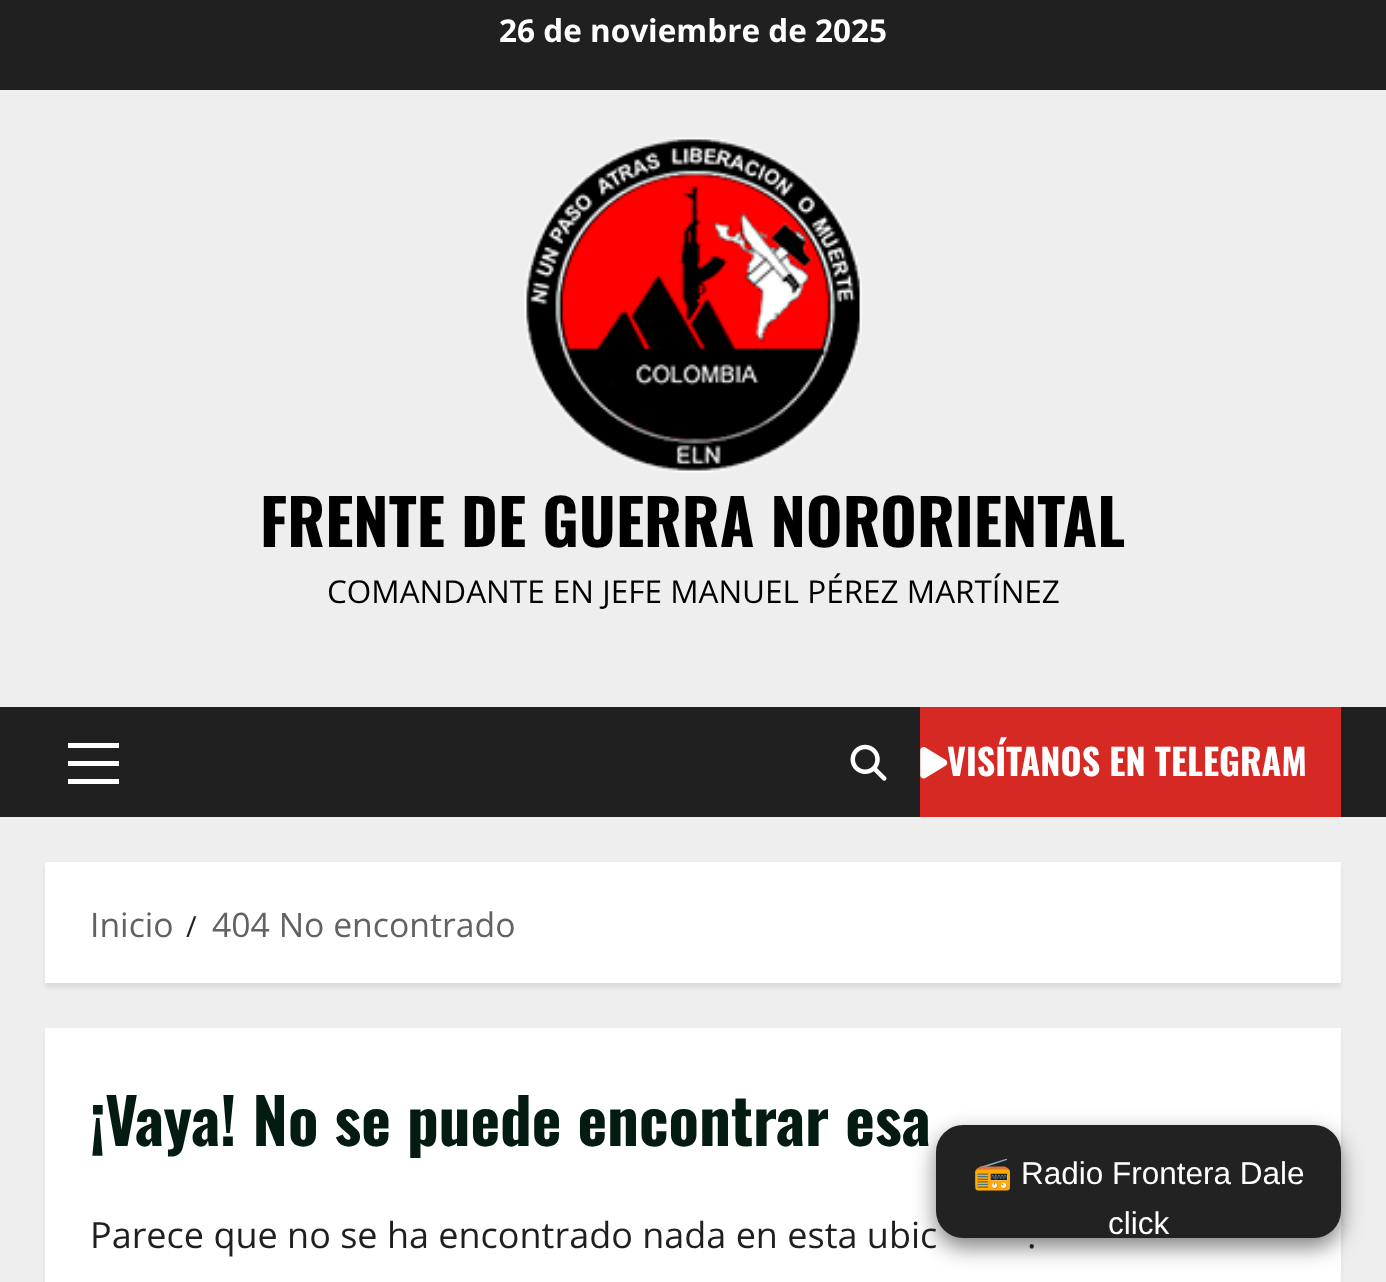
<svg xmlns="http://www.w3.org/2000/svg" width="1386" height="1282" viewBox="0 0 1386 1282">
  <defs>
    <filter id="blur1" x="-50%" y="-200%" width="200%" height="500%"><feGaussianBlur stdDeviation="2"/></filter>
    <filter id="blur2" x="-50%" y="-200%" width="200%" height="500%"><feGaussianBlur stdDeviation="11"/></filter>
  </defs>
  <rect width="100%" height="100%" fill="#eeeeee"/>
  <rect x="0" y="0" width="1386" height="90" fill="#202020"/>
  <text x="499" y="42" font-family="Open Sans" font-size="31.5" font-weight="bold" fill="#ffffff">26 de noviembre de 2025</text>
  <image x="524" y="137" width="338" height="336" href="img1.png"/>
  <text x="260" y="547" font-family="Oswald" font-size="63" font-weight="bold" fill="#000000">FRENTE DE GUERRA NORORIENTAL</text>
  <text x="327" y="603" font-family="Open Sans" font-size="31.5" fill="#000000">COMANDANTE EN JEFE MANUEL PÉREZ MARTÍNEZ</text>
  <rect x="45" y="1033" width="1296" height="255" fill="#000000" fill-opacity="0.08" filter="url(#blur1)"/>
  <rect x="45" y="1028" width="1296" height="254" fill="#ffffff"/>
  <rect x="936" y="1134" width="405" height="113" rx="27" fill="#000000" fill-opacity="0.5" filter="url(#blur2)"/>
  <text x="90" y="1248" font-family="Open Sans" font-size="36" fill="#1f1f1f">Parece que no se ha encontrado nada en esta ubic</text>
  <rect x="936" y="1125" width="405" height="113" rx="27" fill="#222222"/>
  <text x="973" y="1184" font-family="Noto Color Emoji" font-size="31.5" fill="#ffffff">📻</text>
  <text x="1021" y="1184" font-family="Liberation Sans" font-size="31.5" fill="#ffffff">Radio Frontera Dale</text>
  <text x="1108" y="1234" font-family="Liberation Sans" font-size="31.5" fill="#ffffff">click</text>
  <rect x="0" y="707" width="1386" height="110" fill="#202020"/>
  <rect x="68" y="761" width="51" height="5" fill="#ffffff"/>
  <rect x="68" y="743" width="51" height="5" fill="#ffffff"/>
  <rect x="68" y="779" width="51" height="5" fill="#ffffff"/>
  <image x="850" y="744" width="37" height="37" href="img2.png"/>
  <rect x="920" y="707" width="421" height="110" fill="#d72924"/>
  <image x="920" y="747" width="28" height="32" href="img3.png"/>
  <text x="947" y="776" font-family="Oswald" font-size="36" font-weight="bold" fill="#ffffff">VISÍTANOS EN TELEGRAM</text>
  <rect x="45" y="866" width="1296" height="122" fill="#000000" fill-opacity="0.08" filter="url(#blur1)"/>
  <rect x="45" y="862" width="1296" height="121" fill="#ffffff"/>
  <text x="90" y="937" font-family="Open Sans" font-size="33.75" fill="#626262">Inicio</text>
  <text x="186" y="937" font-family="Open Sans" font-size="29" fill="#1f1f1f">/</text>
  <text x="212" y="937" font-family="Open Sans" font-size="33.75" fill="#626262">404 No encontrado</text>
  <text x="90" y="1146" font-family="Oswald" font-size="63" font-weight="bold" fill="#031b11">¡Vaya! No se puede encontrar esa</text>
  <text x="1027" y="1248" font-family="Open Sans" font-size="36" fill="#1f1f1f">.</text>
</svg>
